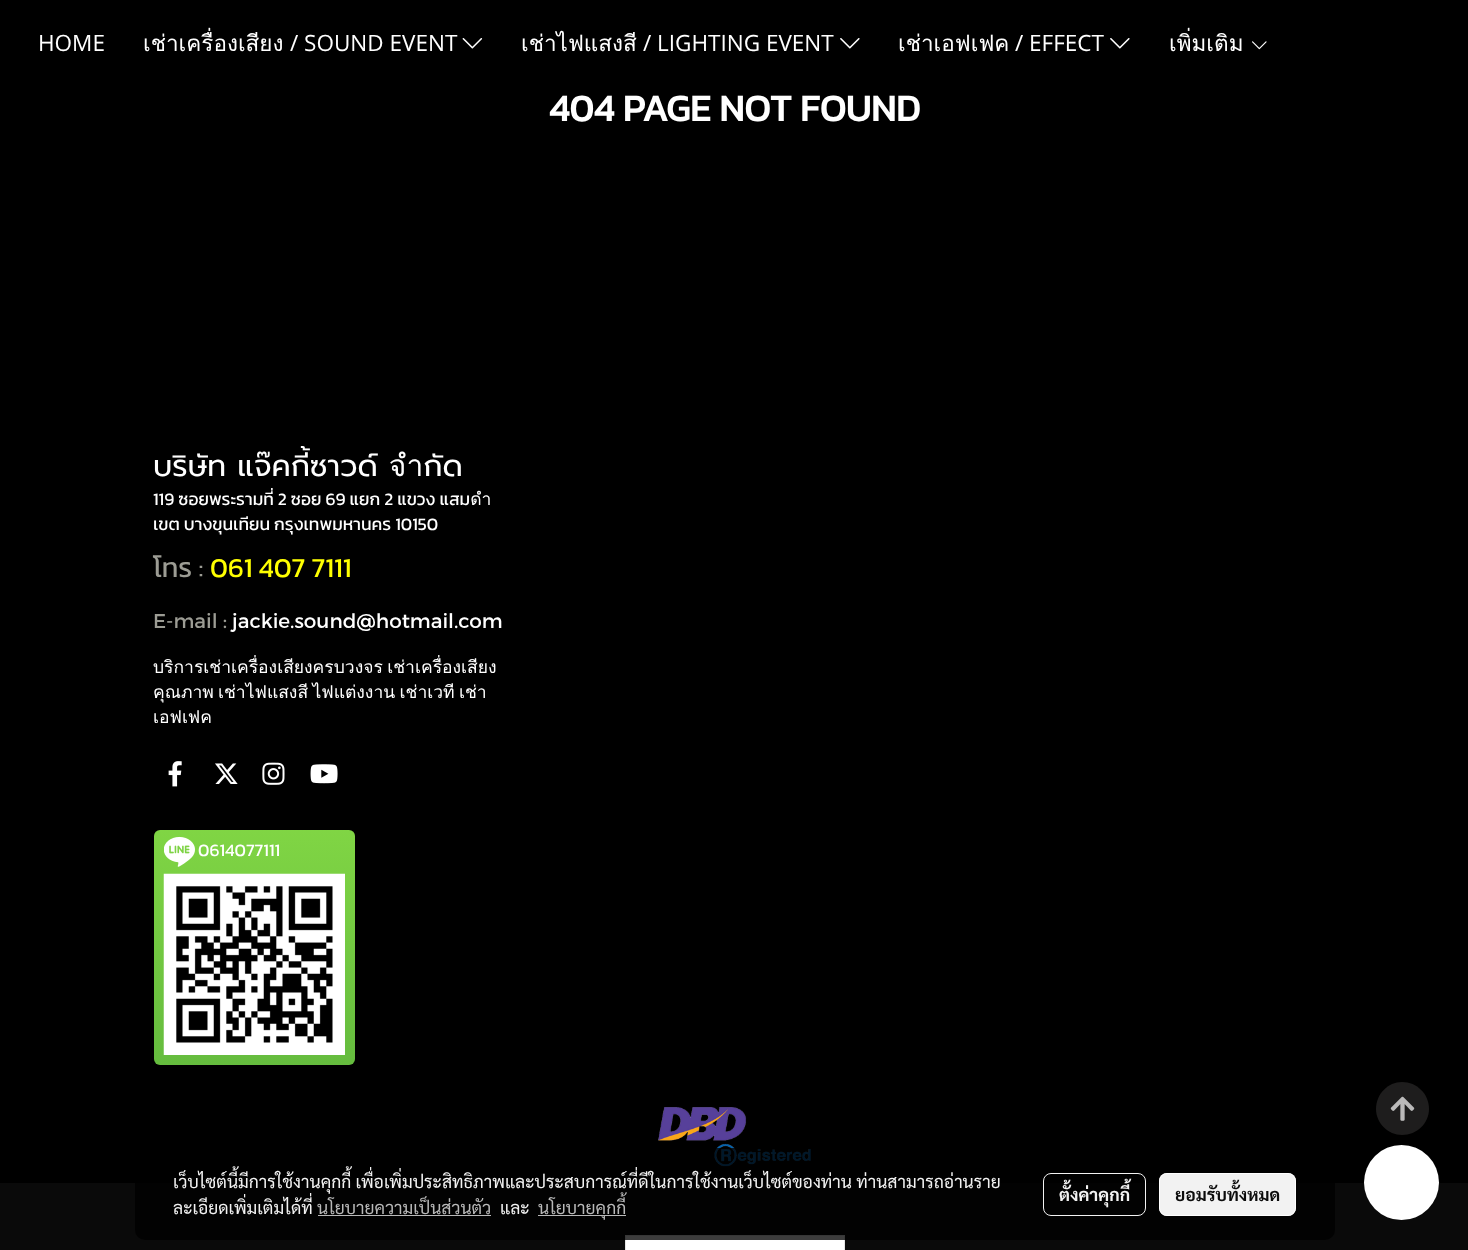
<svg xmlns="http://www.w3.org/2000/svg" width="1468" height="1250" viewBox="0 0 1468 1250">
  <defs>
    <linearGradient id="g1" gradientUnits="userSpaceOnUse" x1="254" y1="830" x2="254" y2="1065"><stop offset="0" stop-color="#80d544"/><stop offset="1" stop-color="#65bc3e"/></linearGradient>
  </defs>
  <rect width="100%" height="100%" fill="#000000"/>
  <text x="38" y="51" font-family="Open Sans" font-size="22.5" fill="#ffffff">HOME</text>
  <text x="143" y="51" font-family="Loma" font-size="22.5" fill="#ffffff">เช่าเครื่องเสียง</text>
  <text x="290" y="51" font-family="Open Sans" font-size="22.5" fill="#ffffff">/ SOUND EVENT</text>
  <image x="462" y="38" width="21" height="11" href="img1.png"/>
  <text x="521" y="51" font-family="Loma" font-size="22.5" fill="#ffffff">เช่าไฟแสงสี</text>
  <text x="643" y="51" font-family="Open Sans" font-size="22.5" fill="#ffffff">/ LIGHTING EVENT</text>
  <image x="840" y="38" width="20" height="11" href="img2.png"/>
  <text x="898" y="51" font-family="Loma" font-size="22.5" fill="#ffffff">เช่าเอฟเฟค</text>
  <text x="1015" y="51" font-family="Open Sans" font-size="22.5" fill="#ffffff">/ EFFECT</text>
  <image x="1110" y="38" width="20" height="11" href="img2.png"/>
  <text x="1169" y="51" font-family="Loma" font-size="22.5" fill="#ffffff">เพิ่มเติม</text>
  <image x="1252" y="41" width="15" height="9" href="img3.png"/>
  <text x="549" y="121" font-family="Kanit" font-size="37.5" font-weight="bold" fill="#ffffff">404 PAGE NOT FOUND</text>
  <text x="153" y="476" font-family="Prompt" font-size="30" fill="#ffffff">บริษัท แจ๊คกี้ซาวด์ จำกัด</text>
  <text x="153" y="505" font-family="Kanit" font-size="17.5" fill="#ffffff">119 ซอยพระรามที่ 2 ซอย 69 แยก 2 แขวง แสมดำ</text>
  <text x="153" y="530" font-family="Kanit" font-size="17.5" fill="#ffffff">เขต บางขุนเทียน กรุงเทพมหานคร 10150</text>
  <text x="153" y="577" font-family="Kanit" font-size="27.5" fill="#9c9c94">โทร :</text>
  <text x="210" y="577" font-family="Kanit" font-size="27.5" fill="#ffff00">061 407 7111</text>
  <text x="153" y="628" font-family="Montserrat" font-size="20" fill="#9c9c94">E-mail :</text>
  <text x="232" y="628" font-family="Montserrat" font-size="20" fill="#ffffff">jackie.sound@hotmail.com</text>
  <text x="153" y="673" word-spacing="-1.5" font-family="Loma" font-size="17.5" fill="#ffffff">บริการเช่าเครื่องเสียงครบวงจร เช่าเครื่องเสียง</text>
  <text x="153" y="698" font-family="Loma" font-size="17.5" fill="#ffffff">คุณภาพ</text>
  <text x="218" y="698" word-spacing="-1.5" font-family="Loma" font-size="17.5" fill="#ffffff">เช่าไฟแสงสี ไฟแต่งงาน เช่าเวที เช่า</text>
  <text x="153" y="723" font-family="Loma" font-size="17.5" fill="#ffffff">เอฟเฟค</text>
  <image x="168" y="761" width="14" height="26" href="img4.png"/>
  <image x="215" y="763" width="23" height="21" href="img5.png"/>
  <image x="262" y="762" width="23" height="23" href="img6.png"/>
  <image x="310" y="764" width="28" height="20" href="img7.png"/>
  <rect x="154" y="830" width="201" height="235" rx="6" fill="url(#g1)"/>
  <image x="164" y="836" width="31" height="31" href="img8.png"/>
  <text x="198" y="856" font-family="Kanit" font-size="17.5" fill="#ffffff">0614077111</text>
  <image x="163" y="873" width="182" height="182" href="img9.png"/>
  <image x="658" y="1107" width="153" height="60" href="img10.png"/>
  <rect x="0" y="1183" width="1468" height="67" fill="#0a0a0a"/>
  <rect x="625.5" y="1235.5" width="219" height="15" fill="#ffffff" stroke="#e5e5e5"/>
  <path d="M1402 1082C1388 1082 1376 1094 1376 1109C1376 1123 1388 1135 1402 1135C1417 1135 1429 1123 1429 1109C1429 1094 1417 1082 1402 1082Z" fill="#1e1d1d"/>
  <image x="1390" y="1096" width="25" height="25" href="img11.png"/>
  <rect x="135" y="1148" width="1200" height="92" rx="10" fill="#000000" fill-opacity="0.76"/>
  <text x="173" y="1188" font-family="Sarabun" font-size="17.5" fill="#f2f2f2">เว็บไซต์นี้มีการใช้งานคุกกี้ เพื่อเพิ่มประสิทธิภาพและประสบการณ์ที่ดีในการใช้งานเว็บไซต์ของท่าน ท่านสามารถอ่านราย</text>
  <text x="173" y="1214" font-family="Sarabun" font-size="17.5" fill="#f2f2f2">ละเอียดเพิ่มเติมได้ที่</text>
  <text x="317" y="1214" font-family="Sarabun" font-size="17.5" fill="#b9b9b9">นโยบายความเป็นส่วนตัว</text>
  <rect x="318" y="1215" width="173" height="1" fill="#b9b9b9"/>
  <text x="500" y="1214" font-family="Sarabun" font-size="17.5" fill="#f2f2f2">และ</text>
  <rect x="538" y="1215" width="88" height="1" fill="#b9b9b9"/>
  <text x="538" y="1214" font-family="Sarabun" font-size="17.5" fill="#b9b9b9">นโยบายคุกกี้</text>
  <rect x="1043.5" y="1173.5" width="102" height="42" rx="7.5" fill="none" stroke="#f2f2f2"/>
  <text x="1059" y="1201" font-family="Sarabun" font-size="17.5" font-weight="bold" fill="#f2f2f2">ตั้งค่าคุกกี้</text>
  <rect x="1159" y="1173" width="137" height="43" rx="8" fill="#f2f2f2"/>
  <rect x="1159.5" y="1173.5" width="136" height="42" rx="7.5" fill="none" stroke="#ffffff" stroke-opacity="0.95"/>
  <text x="1175" y="1201" font-family="Sarabun" font-size="17.5" font-weight="bold" fill="#0c0c0c">ยอมรับทั้งหมด</text>
  <circle cx="1401.5" cy="1182.5" r="37.5" fill="#ffffff"/>
</svg>
